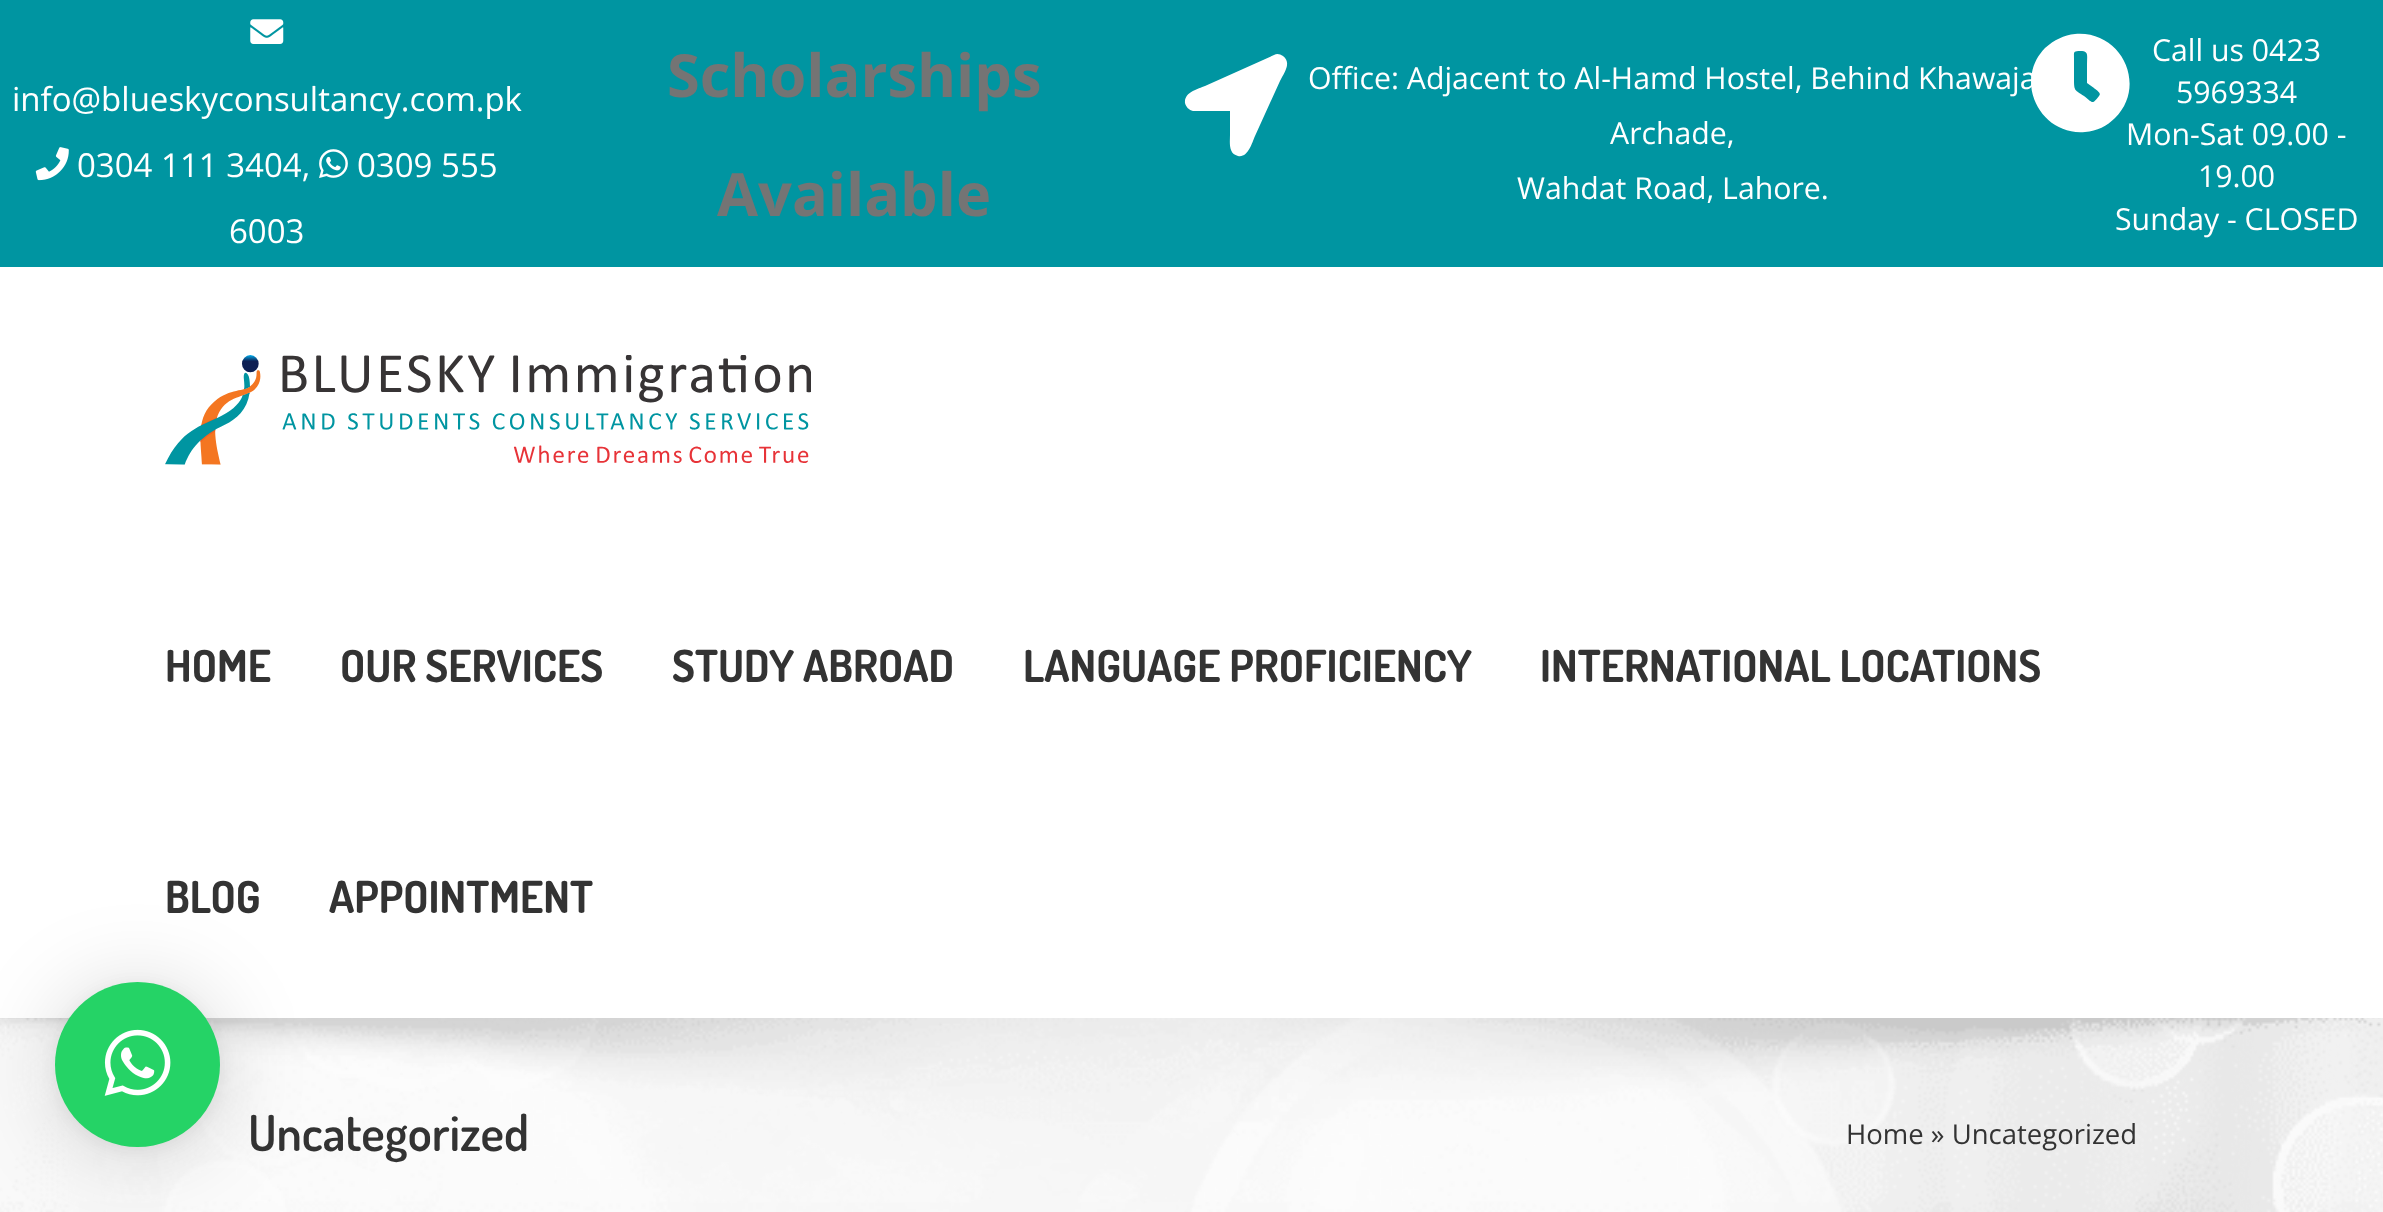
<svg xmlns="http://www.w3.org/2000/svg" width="2383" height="1212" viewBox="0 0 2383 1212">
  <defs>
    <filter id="blur1" x="-50%" y="-200%" width="200%" height="500%"><feGaussianBlur stdDeviation="44"/></filter>
    <filter id="blur2" x="-50%" y="-200%" width="200%" height="500%"><feGaussianBlur stdDeviation="8"/></filter>
  </defs>
  <rect width="100%" height="100%" fill="#ffffff"/>
  <rect x="0" y="0" width="2383" height="267" fill="#0095a1"/>
  <image x="250" y="19" width="34" height="25" href="img1.png"/>
  <text x="12" y="111" font-family="Open Sans" font-size="33" fill="#ffffff">info@blueskyconsultancy.com.pk</text>
  <image x="35" y="147" width="34" height="34" href="img2.png"/>
  <text x="77" y="177" font-family="Open Sans" font-size="33" fill="#ffffff">0304 111 3404,</text>
  <image x="319" y="149" width="29" height="29" href="img3.png"/>
  <text x="357" y="177" font-family="Open Sans" font-size="33" fill="#ffffff">0309 555</text>
  <text x="229" y="243" font-family="Open Sans" font-size="33" fill="#ffffff">6003</text>
  <text x="667" y="97" font-family="Open Sans" font-size="59.5" font-weight="bold" fill="#747474">Scholarships</text>
  <text x="717" y="216" font-family="Open Sans" font-size="59.5" font-weight="bold" fill="#747474">Available</text>
  <path d="M1274 55C1277 53 1280 54 1283 56C1292 63 1284 73 1280 81L1255 136C1252 143 1248 158 1238 156C1228 154 1230 142 1230 135V111H1193C1189 110 1186 107 1185 103C1184 92 1198 89 1205 86Z" fill="#ffffff"/>
  <text x="1308" y="89" font-family="Open Sans" font-size="30.25" fill="#ffffff">Office: Adjacent to Al-Hamd Hostel, Behind Khawaja</text>
  <text x="1610" y="144" font-family="Open Sans" font-size="30.25" fill="#ffffff">Archade,</text>
  <text x="1517" y="199" font-family="Open Sans" font-size="30.25" fill="#ffffff">Wahdat Road, Lahore.</text>
  <path d="M2045 48C2054 40 2064 35 2075 34C2121 30 2148 85 2115 118C2107 126 2097 131 2085 132C2040 136 2013 81 2045 48ZM2099 96C2102 93 2096 90 2094 88L2087 83V64C2087 55 2089 51 2080 51C2073 51 2074 52 2074 59V80C2074 91 2075 90 2084 96C2093 103 2092 105 2099 96Z" fill="#ffffff"/>
  <text x="2152" y="61" font-family="Open Sans" font-size="30.25" fill="#ffffff">Call us 0423</text>
  <text x="2176" y="103" font-family="Open Sans" font-size="30.25" fill="#ffffff">5969334</text>
  <text x="2126" y="145" font-family="Open Sans" font-size="30.25" fill="#ffffff">Mon-Sat 09.00 -</text>
  <text x="2198" y="187" font-family="Open Sans" font-size="30.25" fill="#ffffff">19.00</text>
  <text x="2115" y="230" font-family="Open Sans" font-size="30.25" fill="#ffffff">Sunday - CLOSED</text>
  <image x="165" y="355" width="646" height="110" href="img4.png"/>
  <text x="165" y="682" font-family="Dosis" font-size="44" font-weight="bold" fill="#333333">HOME</text>
  <text x="340" y="682" font-family="Dosis" font-size="44" font-weight="bold" fill="#333333">OUR SERVICES</text>
  <text x="672" y="682" font-family="Dosis" font-size="44" font-weight="bold" fill="#333333">STUDY ABROAD</text>
  <text x="1023" y="682" font-family="Dosis" font-size="44" font-weight="bold" fill="#333333">LANGUAGE PROFICIENCY</text>
  <text x="1540" y="682" font-family="Dosis" font-size="44" font-weight="bold" fill="#333333">INTERNATIONAL LOCATIONS</text>
  <text x="165" y="913" font-family="Dosis" font-size="44" font-weight="bold" fill="#333333">BLOG</text>
  <text x="329" y="913" font-family="Dosis" font-size="44" font-weight="bold" fill="#333333">APPOINTMENT</text>
  <image x="0" y="1018" width="2383" height="194" href="img5.png"/>
  <text x="248" y="1151" font-family="Dosis" font-size="49.5" font-weight="600" fill="#333333">Uncategorized</text>
  <text x="1846" y="1144" font-family="Open Sans" font-size="27.5" fill="#333333">Home » Uncategorized</text>
  <rect x="55" y="987" width="165" height="165" rx="82.5" fill="#000000" fill-opacity="0.16" filter="url(#blur1)"/>
  <rect x="55" y="985" width="165" height="165" rx="82.5" fill="#000000" fill-opacity="0.06" filter="url(#blur2)"/>
  <circle cx="137.5" cy="1064.5" r="82.5" fill="#25d366"/>
  <image x="104" y="1029" width="67" height="67" href="img6.png"/>
</svg>
